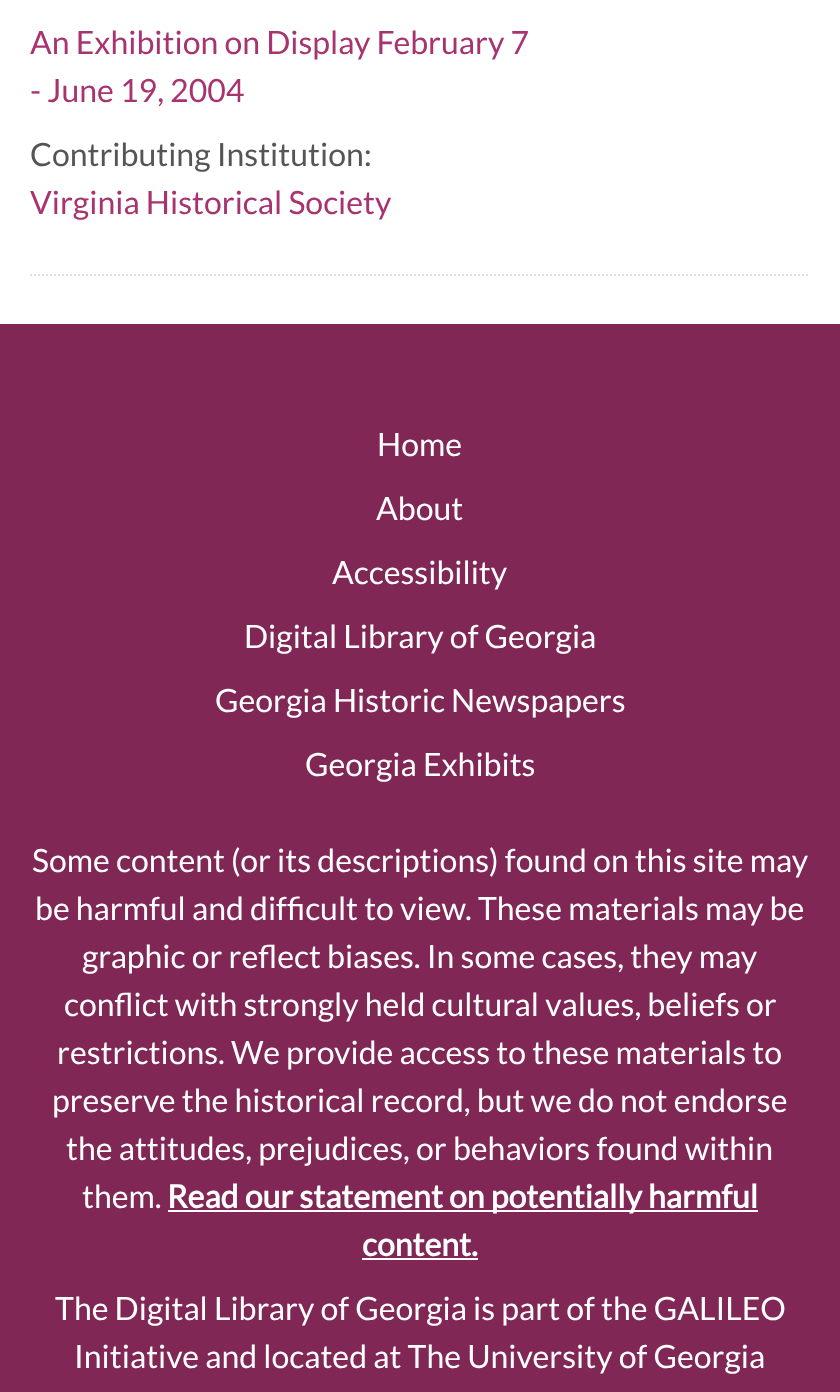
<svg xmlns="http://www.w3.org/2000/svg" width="840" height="1392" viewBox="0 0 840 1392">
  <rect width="100%" height="100%" fill="#ffffff"/>
  <path d="M30 275H810" fill="none" stroke="#dee2e6" stroke-width="2" stroke-dasharray="2 2"/>
  <text x="30" y="54" font-family="Lato" font-size="32" fill="#a7336f">An Exhibition on Display February 7</text>
  <text x="30" y="102" font-family="Lato" font-size="32" fill="#a7336f">- June 19, 2004</text>
  <text x="30" y="166" font-family="Lato" font-size="32" fill="#555555">Contributing Institution:</text>
  <text x="30" y="214" font-family="Lato" font-size="32" fill="#a7336f">Virginia Historical Society</text>
  <rect x="0" y="324" width="840" height="1068" fill="#802755"/>
  <text x="377" y="456" font-family="Lato" font-size="32" fill="#ffffff">Home</text>
  <text x="376" y="520" font-family="Lato" font-size="32" fill="#ffffff">About</text>
  <text x="332" y="584" font-family="Lato" font-size="32" fill="#ffffff">Accessibility</text>
  <text x="244" y="648" font-family="Lato" font-size="32" fill="#ffffff">Digital Library of Georgia</text>
  <text x="215" y="712" font-family="Lato" font-size="32" fill="#ffffff">Georgia Historic Newspapers</text>
  <text x="305" y="776" font-family="Lato" font-size="32" fill="#ffffff">Georgia Exhibits</text>
  <text x="32" y="872" font-family="Lato" font-size="32" fill="#ffffff">Some content (or its descriptions) found on this site may</text>
  <text x="35" y="920" font-family="Lato" font-size="32" fill="#ffffff">be harmful and difficult to view. These materials may be</text>
  <text x="82" y="968" font-family="Lato" font-size="32" fill="#ffffff">graphic or reflect biases. In some cases, they may</text>
  <text x="64" y="1016" font-family="Lato" font-size="32" fill="#ffffff">conflict with strongly held cultural values, beliefs or</text>
  <text x="57" y="1064" font-family="Lato" font-size="32" fill="#ffffff">restrictions. We provide access to these materials to</text>
  <text x="52" y="1112" font-family="Lato" font-size="32" fill="#ffffff">preserve the historical record, but we do not endorse</text>
  <text x="66" y="1160" font-family="Lato" font-size="32" fill="#ffffff">the attitudes, prejudices, or behaviors found within</text>
  <text x="82" y="1208" font-family="Lato" font-size="32" fill="#ffffff">them.</text>
  <rect x="168" y="1210" width="590" height="2" fill="#ffffff"/>
  <text x="167" y="1208" font-family="Lato" font-size="32" font-weight="bold" fill="#ffffff">Read our statement on potentially harmful</text>
  <text x="362" y="1256" font-family="Lato" font-size="32" font-weight="bold" fill="#ffffff">content.</text>
  <rect x="362" y="1258" width="116" height="2" fill="#ffffff"/>
  <text x="55" y="1320" font-family="Lato" font-size="32" fill="#ffffff">The Digital Library of Georgia is part of the GALILEO</text>
  <text x="74" y="1368" font-family="Lato" font-size="32" fill="#ffffff">Initiative and located at The University of Georgia</text>
</svg>
